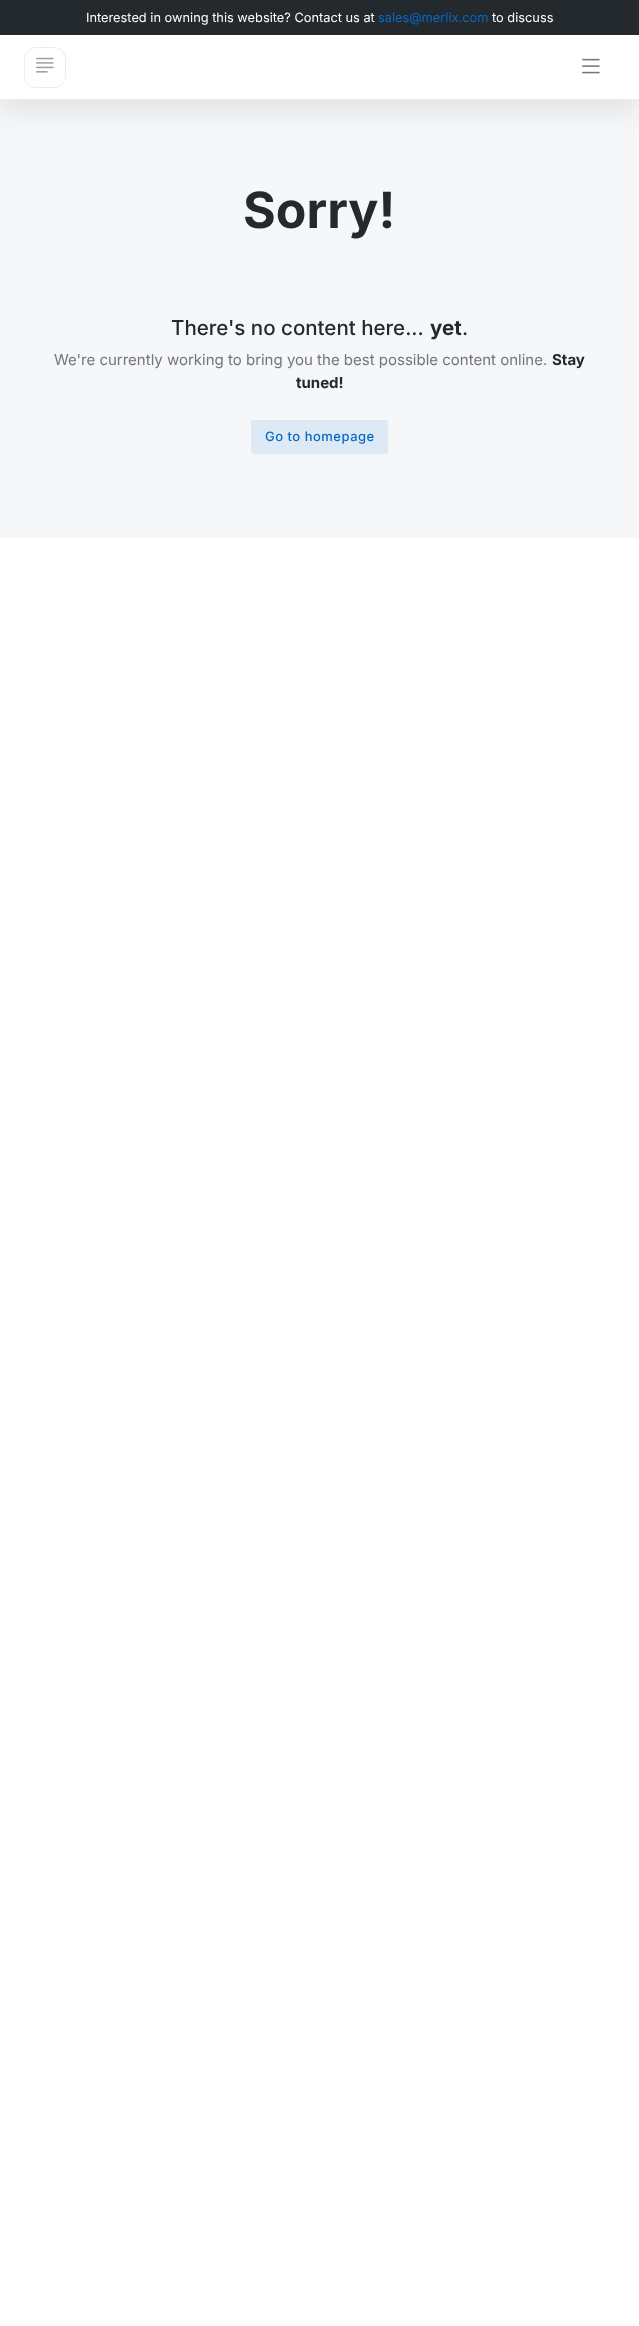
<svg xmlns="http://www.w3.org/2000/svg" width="639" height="2326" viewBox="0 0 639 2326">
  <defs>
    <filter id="blur1" x="-50%" y="-200%" width="200%" height="500%"><feGaussianBlur stdDeviation="15"/></filter>
  </defs>
  <rect width="100%" height="100%" fill="#ffffff"/>
  <rect x="0" y="100" width="639" height="438" fill="#f5f7f9"/>
  <rect x="0" y="8" width="639" height="100" fill="#020617" fill-opacity="0.1" filter="url(#blur1)"/>
  <rect x="0" y="35" width="639" height="64" fill="#ffffff"/>
  <rect x="0" y="99" width="639" height="1" fill="#ececee"/>
  <rect x="0" y="0" width="639" height="35" fill="#24292d"/>
  <text x="86" y="22" font-family="Inter" font-size="12.8" fill="#ffffff">Interested in owning this website? Contact us at</text>
  <text x="378" y="22" font-family="Inter" font-size="12.8" fill="#066ac9">sales@merlix.com</text>
  <text x="492" y="22" font-family="Inter" font-size="12.8" fill="#ffffff">to discuss</text>
  <rect x="24.5" y="47.5" width="41" height="40" rx="11.5" fill="none" stroke="#ececee"/>
  <image x="36" y="57" width="18" height="16" href="img1.png"/>
  <image x="582" y="58" width="18" height="16" href="img2.png"/>
  <text x="243" y="228" font-family="Inter" font-size="50" font-weight="bold" fill="#24292d">Sorry!</text>
  <text x="171" y="335" font-family="Inter" font-size="20.5" font-weight="500" fill="#24292d">There's no content here...</text>
  <text x="430" y="335" font-family="Inter" font-size="20.5" font-weight="bold" fill="#24292d">yet</text>
  <text x="462" y="335" font-family="Inter" font-size="20.5" font-weight="500" fill="#24292d">.</text>
  <text x="54" y="365" font-family="Inter" font-size="15" fill="#747579">We're currently working to bring you the best possible content online.</text>
  <text x="552" y="365" font-family="Inter" font-size="15" font-weight="bold" fill="#24292d">Stay</text>
  <text x="296" y="388" font-family="Inter" font-size="15" font-weight="bold" fill="#24292d">tuned!</text>
  <rect x="251" y="420" width="137" height="34" rx="3" fill="#dde9f4"/>
  <text x="265" y="441" font-family="Inter" font-size="13" font-weight="500" letter-spacing="0.5" fill="#066ac9">Go to homepage</text>
</svg>
